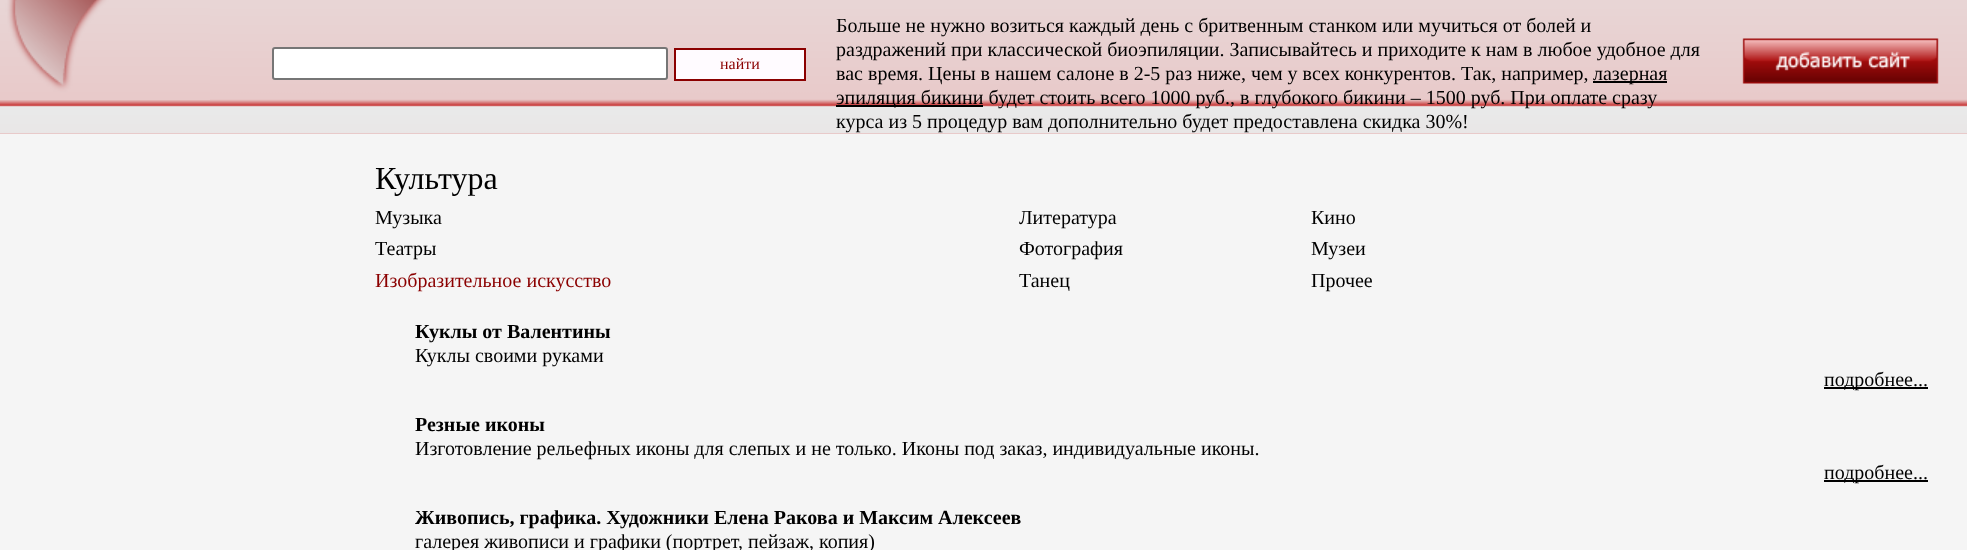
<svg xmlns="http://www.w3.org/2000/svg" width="1967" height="550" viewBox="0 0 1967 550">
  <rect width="100%" height="100%" fill="#e8caca"/>
  <image x="0" y="0" width="1967" height="133" href="img1.png"/>
  <image x="0" y="0" width="210" height="100" href="img2.png"/>
  <rect x="273" y="48" width="394" height="31" rx="2" fill="#ffffff" stroke="#767676" stroke-width="2"/>
  <rect x="675" y="49" width="130" height="31" fill="#fffbff" stroke="#8b0000" stroke-width="2"/>
  <text x="720" y="69" font-family="Liberation Serif" font-size="16" fill="#8b0000">найти</text>
  <text x="836" y="32" font-family="Liberation Serif" font-size="20" fill="#000000">Больше не нужно возиться каждый день с бритвенным станком или мучиться от болей и</text>
  <text x="836" y="56" font-family="Liberation Serif" font-size="20" fill="#000000">раздражений при классической биоэпиляции. Записывайтесь и приходите к нам в любое удобное для</text>
  <text x="836" y="80" font-family="Liberation Serif" font-size="20" fill="#000000">вас время. Цены в нашем салоне в 2-5 раз ниже, чем у всех конкурентов. Так, например,</text>
  <rect x="1593" y="81" width="74" height="2" fill="#000000"/>
  <text x="1593" y="80" font-family="Liberation Serif" font-size="20" fill="#000000">лазерная</text>
  <rect x="836" y="105" width="147" height="2" fill="#000000"/>
  <text x="836" y="104" font-family="Liberation Serif" font-size="20" fill="#000000">эпиляция бикини будет стоить всего 1000 руб., в глубокого бикини – 1500 руб. При оплате сразу</text>
  <text x="836" y="128" font-family="Liberation Serif" font-size="20" fill="#000000">курса из 5 процедур вам дополнительно будет предоставлена скидка 30%!</text>
  <image x="1742" y="38" width="197" height="46" href="img3.png"/>
  <rect x="0" y="134" width="1967" height="416" fill="#f5f5f5"/>
  <text x="375" y="189" font-family="Liberation Serif" font-size="32" fill="#000000">Культура</text>
  <text x="375" y="224" font-family="Liberation Serif" font-size="20" fill="#000000">Музыка</text>
  <text x="1019" y="224" font-family="Liberation Serif" font-size="20" fill="#000000">Литература</text>
  <text x="1311" y="224" font-family="Liberation Serif" font-size="20" fill="#000000">Кино</text>
  <text x="375" y="255" font-family="Liberation Serif" font-size="20" fill="#000000">Театры</text>
  <text x="1019" y="255" font-family="Liberation Serif" font-size="20" fill="#000000">Фотография</text>
  <text x="1311" y="255" font-family="Liberation Serif" font-size="20" fill="#000000">Музеи</text>
  <text x="375" y="287" font-family="Liberation Serif" font-size="20" fill="#8b0000">Изобразительное искусство</text>
  <text x="1019" y="287" font-family="Liberation Serif" font-size="20" fill="#000000">Танец</text>
  <text x="1311" y="287" font-family="Liberation Serif" font-size="20" fill="#000000">Прочее</text>
  <text x="415" y="338" font-family="Liberation Serif" font-size="20" font-weight="bold" fill="#000000">Куклы от Валентины</text>
  <text x="415" y="362" font-family="Liberation Serif" font-size="20" fill="#000000">Куклы своими руками</text>
  <rect x="1824" y="387" width="104" height="2" fill="#000000"/>
  <text x="1824" y="386" font-family="Liberation Serif" font-size="20" fill="#000000">подробнее...</text>
  <text x="415" y="431" font-family="Liberation Serif" font-size="20" font-weight="bold" fill="#000000">Резные иконы</text>
  <text x="415" y="455" font-family="Liberation Serif" font-size="20" fill="#000000">Изготовление рельефных иконы для слепых и не только. Иконы под заказ, индивидуальные иконы.</text>
  <rect x="1824" y="480" width="104" height="2" fill="#000000"/>
  <text x="1824" y="479" font-family="Liberation Serif" font-size="20" fill="#000000">подробнее...</text>
  <text x="415" y="524" font-family="Liberation Serif" font-size="20" font-weight="bold" fill="#000000">Живопись, графика. Художники Елена Ракова и Максим Алексеев</text>
  <text x="415" y="548" font-family="Liberation Serif" font-size="20" fill="#000000">галерея живописи и графики (портрет, пейзаж, копия)</text>
</svg>
